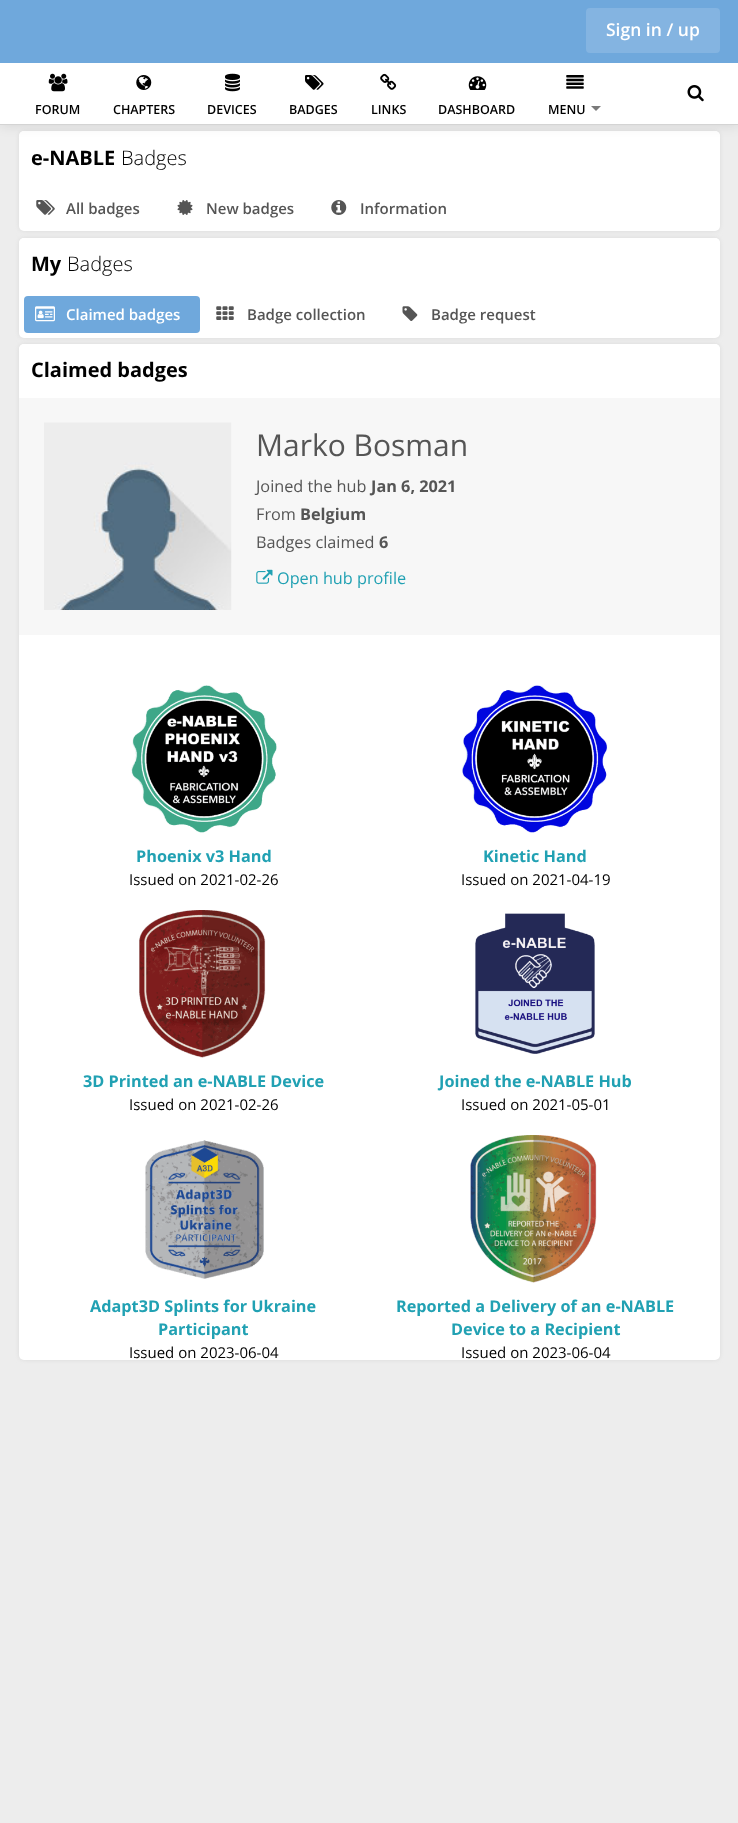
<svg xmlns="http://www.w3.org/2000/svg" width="738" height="1823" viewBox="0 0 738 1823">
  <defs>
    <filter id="blur1" x="-50%" y="-200%" width="200%" height="500%"><feGaussianBlur stdDeviation="2"/></filter>
    <filter id="blur2" x="-50%" y="-200%" width="200%" height="500%"><feGaussianBlur stdDeviation="6"/></filter>
  </defs>
  <rect width="100%" height="100%" fill="#ededed"/>
  <rect x="19" y="131" width="701" height="100" rx="5" fill="#dadada" filter="url(#blur1)"/>
  <rect x="19" y="131" width="701" height="100" rx="5" fill="#ffffff"/>
  <rect x="19" y="131" width="701" height="54" rx="5" fill="#ffffff"/>
  <rect x="0" y="64" width="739" height="62" fill="#000000" fill-opacity="0.1" filter="url(#blur2)"/>
  <rect x="0" y="0" width="738" height="63" fill="#6fa8dc"/>
  <rect x="586" y="8" width="134" height="45" rx="4" fill="#84b4e1"/>
  <text x="606" y="36" font-family="Open Sans" font-size="17.5" font-weight="600" fill="#ffffff">Sign in / up</text>
  <rect x="0" y="63" width="738" height="61" fill="#ffffff"/>
  <rect x="0" y="124" width="738" height="1" fill="#d4d4d4"/>
  <image x="687" y="85" width="17" height="17" href="img1.png"/>
  <image x="48" y="73" width="20" height="19" href="img2.png"/>
  <text x="35" y="114" font-family="Open Sans" font-size="12.5" font-weight="600" fill="#000000">FORUM</text>
  <image x="136" y="75" width="16" height="15" href="img3.png"/>
  <text x="113" y="114" font-family="Open Sans" font-size="12.5" font-weight="600" fill="#000000">CHAPTERS</text>
  <image x="225" y="73" width="15" height="19" href="img4.png"/>
  <text x="207" y="114" font-family="Open Sans" font-size="12.5" font-weight="600" fill="#000000">DEVICES</text>
  <image x="305" y="75" width="19" height="15" href="img5.png"/>
  <text x="289" y="114" font-family="Open Sans" font-size="12.5" font-weight="600" fill="#000000">BADGES</text>
  <image x="380" y="73" width="17" height="17" href="img6.png"/>
  <text x="371" y="114" font-family="Open Sans" font-size="12.5" font-weight="600" fill="#000000">LINKS</text>
  <image x="468" y="76" width="19" height="14" href="img7.png"/>
  <text x="438" y="114" font-family="Open Sans" font-size="12.5" font-weight="600" fill="#000000">DASHBOARD</text>
  <image x="566" y="75" width="18" height="14" href="img8.png"/>
  <text x="548" y="114" font-family="Open Sans" font-size="12.5" font-weight="600" fill="#000000">MENU</text>
  <path d="M591 106H601L596 111Z" fill="#7a7a7a"/>
  <text x="31" y="165" font-family="Open Sans" font-size="20" font-weight="bold" fill="#000000">e-NABLE</text>
  <text x="121" y="165" font-family="Open Sans" font-size="20" font-weight="300" fill="#000000">Badges</text>
  <image x="36" y="200" width="19" height="15" href="img9.png"/>
  <text x="66" y="214" font-family="Open Sans" font-size="15" font-weight="600" fill="#555555">All badges</text>
  <image x="177" y="200" width="16" height="15" href="img10.png"/>
  <text x="206" y="214" font-family="Open Sans" font-size="15" font-weight="600" fill="#555555">New badges</text>
  <image x="331" y="200" width="16" height="15" href="img11.png"/>
  <text x="360" y="214" font-family="Open Sans" font-size="15" font-weight="600" fill="#555555">Information</text>
  <rect x="19" y="238" width="701" height="100" rx="5" fill="#dadada" filter="url(#blur1)"/>
  <rect x="19" y="238" width="701" height="100" rx="5" fill="#ffffff"/>
  <rect x="19" y="238" width="701" height="53" rx="5" fill="#ffffff"/>
  <text x="31" y="271" font-family="Open Sans" font-size="20" font-weight="bold" fill="#000000">My</text>
  <text x="67" y="271" font-family="Open Sans" font-size="20" font-weight="300" fill="#000000">Badges</text>
  <rect x="24" y="296" width="176" height="37" rx="4" fill="#6fa8dc"/>
  <image x="35" y="306" width="20" height="16" href="img12.png"/>
  <text x="66" y="320" font-family="Open Sans" font-size="15" font-weight="600" fill="#ffffff">Claimed badges</text>
  <image x="216" y="306" width="18" height="14" href="img13.png"/>
  <text x="247" y="320" font-family="Open Sans" font-size="15" font-weight="600" fill="#555555">Badge collection</text>
  <image x="402" y="306" width="16" height="15" href="img14.png"/>
  <text x="431" y="320" font-family="Open Sans" font-size="15" font-weight="600" fill="#555555">Badge request</text>
  <rect x="19" y="344" width="701" height="1016" rx="5" fill="#dadada" filter="url(#blur1)"/>
  <rect x="19" y="344" width="701" height="1016" rx="5" fill="#ffffff"/>
  <rect x="19" y="344" width="701" height="54" rx="5" fill="#ffffff"/>
  <text x="31" y="377" font-family="Open Sans" font-size="20" font-weight="bold" fill="#000000">Claimed badges</text>
  <rect x="19" y="398" width="701" height="237" fill="#f7f7f7"/>
  <image x="44" y="422" width="188" height="188" href="img15.png"/>
  <text x="256" y="456" font-family="Open Sans" font-size="30" fill="#555555">Marko Bosman</text>
  <text x="256" y="492" font-family="Open Sans" font-size="16.25" fill="#555555">Joined the hub</text>
  <text x="371" y="492" font-family="Open Sans" font-size="16.25" font-weight="bold" fill="#555555">Jan 6, 2021</text>
  <text x="256" y="520" font-family="Open Sans" font-size="16.25" fill="#555555">From</text>
  <text x="300" y="520" font-family="Open Sans" font-size="16.25" font-weight="bold" fill="#555555">Belgium</text>
  <text x="256" y="548" font-family="Open Sans" font-size="16.25" fill="#555555">Badges claimed</text>
  <text x="379" y="548" font-family="Open Sans" font-size="16.25" font-weight="bold" fill="#555555">6</text>
  <image x="256" y="569" width="17" height="15" href="img16.png"/>
  <text x="277" y="584" font-family="Open Sans" font-size="16.25" fill="#21a1b3">Open hub profile</text>
  <image x="131" y="685" width="146" height="148" href="img17.png"/>
  <text x="136" y="862" font-family="Open Sans" font-size="16.25" font-weight="bold" fill="#21a1b3">Phoenix v3 Hand</text>
  <text x="129" y="885" font-family="Open Sans" font-size="15" fill="#000000">Issued on 2021-02-26</text>
  <image x="462" y="685" width="146" height="148" href="img18.png"/>
  <text x="483" y="862" font-family="Open Sans" font-size="16.25" font-weight="bold" fill="#21a1b3">Kinetic Hand</text>
  <text x="461" y="885" font-family="Open Sans" font-size="15" fill="#000000">Issued on 2021-04-19</text>
  <image x="139" y="910" width="127" height="148" href="img19.png"/>
  <text x="83" y="1087" font-family="Open Sans" font-size="16.25" font-weight="bold" fill="#21a1b3">3D Printed an e-NABLE Device</text>
  <text x="129" y="1110" font-family="Open Sans" font-size="15" fill="#000000">Issued on 2021-02-26</text>
  <image x="475" y="913" width="120" height="141" href="img20.png"/>
  <text x="439" y="1087" font-family="Open Sans" font-size="16.25" font-weight="bold" fill="#21a1b3">Joined the e-NABLE Hub</text>
  <text x="461" y="1110" font-family="Open Sans" font-size="15" fill="#000000">Issued on 2021-05-01</text>
  <image x="145" y="1140" width="119" height="139" href="img21.png"/>
  <text x="90" y="1312" font-family="Open Sans" font-size="16.25" font-weight="bold" fill="#21a1b3">Adapt3D Splints for Ukraine</text>
  <text x="158" y="1335" font-family="Open Sans" font-size="16.25" font-weight="bold" fill="#21a1b3">Participant</text>
  <text x="129" y="1358" font-family="Open Sans" font-size="15" fill="#000000">Issued on 2023-06-04</text>
  <image x="470" y="1135" width="127" height="148" href="img22.png"/>
  <text x="396" y="1312" font-family="Open Sans" font-size="16.25" font-weight="bold" fill="#21a1b3">Reported a Delivery of an e-NABLE</text>
  <text x="451" y="1335" font-family="Open Sans" font-size="16.25" font-weight="bold" fill="#21a1b3">Device to a Recipient</text>
  <text x="461" y="1358" font-family="Open Sans" font-size="15" fill="#000000">Issued on 2023-06-04</text>
</svg>
